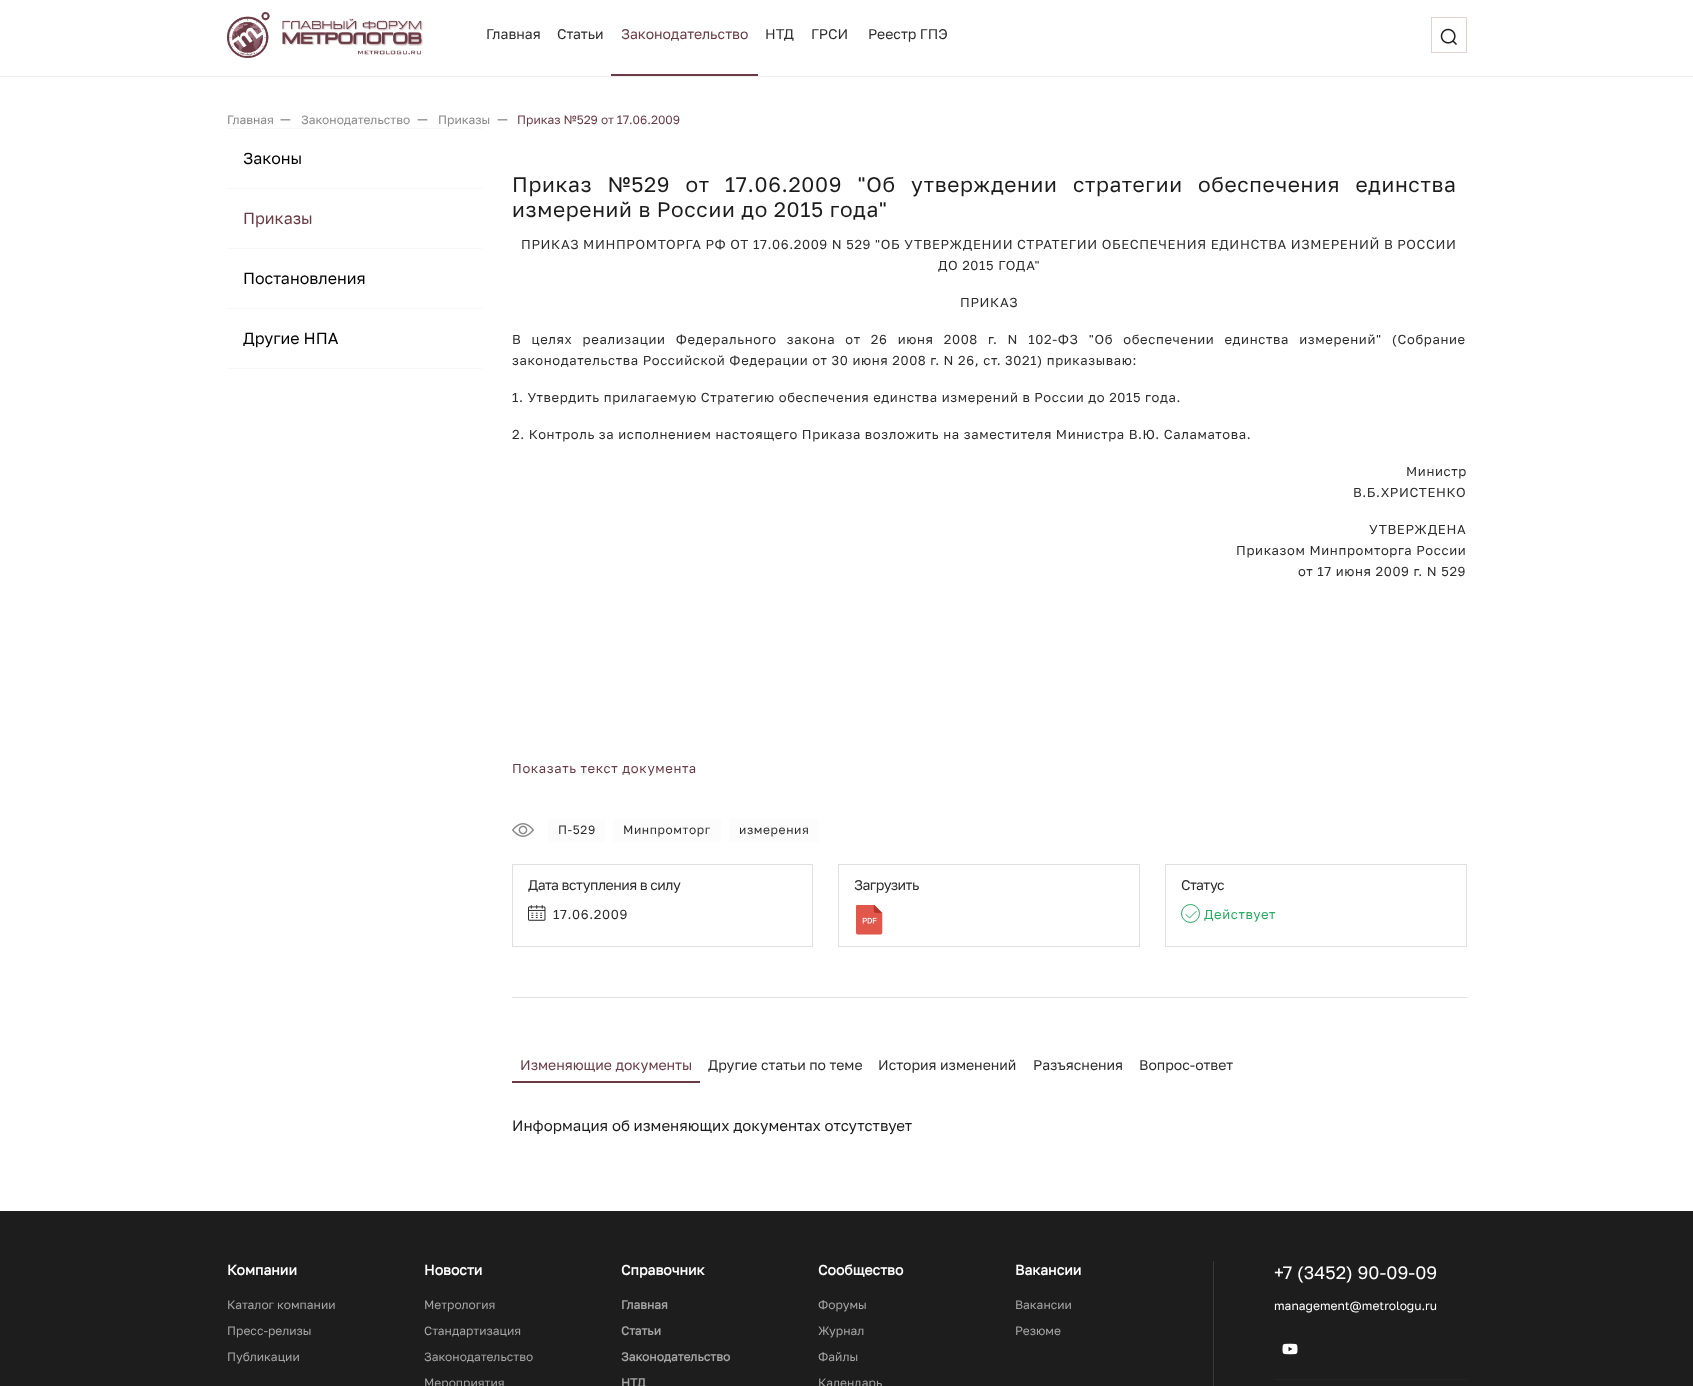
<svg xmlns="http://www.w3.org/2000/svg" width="1693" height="1386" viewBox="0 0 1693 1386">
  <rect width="100%" height="100%" fill="#ffffff"/>
  <rect x="0" y="76" width="1693" height="1" fill="#eeeeee"/>
  <image x="227" y="12" width="196" height="46" href="img1.png"/>
  <text x="486" y="39" font-family="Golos" font-size="14" fill="#2e2e2e">Главная</text>
  <text x="557" y="39" font-family="Golos" font-size="14" fill="#2e2e2e">Статьи</text>
  <rect x="611" y="74" width="147" height="2" fill="#6a3b45"/>
  <text x="621" y="39" font-family="Golos" font-size="14" fill="#6a3b45">Законодательство</text>
  <text x="765" y="39" font-family="Golos" font-size="14" fill="#2e2e2e">НТД</text>
  <text x="811" y="39" font-family="Golos" font-size="14" fill="#2e2e2e">ГРСИ</text>
  <text x="868" y="39" font-family="Golos" font-size="14" fill="#2e2e2e">Реестр ГПЭ</text>
  <rect x="1431.5" y="17.5" width="35" height="35" fill="none" stroke="#e3d1cf"/>
  <image x="1440" y="28" width="17" height="17" href="img2.png"/>
  <text x="227" y="124" font-family="Golos" font-size="12" fill="#898989">Главная</text>
  <text x="280" y="124" font-family="Golos" font-size="15" fill="#898989">—</text>
  <text x="301" y="124" font-family="Golos" font-size="12" fill="#898989">Законодательство</text>
  <text x="417" y="124" font-family="Golos" font-size="15" fill="#898989">—</text>
  <text x="438" y="124" font-family="Golos" font-size="12" fill="#898989">Приказы</text>
  <text x="497" y="124" font-family="Golos" font-size="15" fill="#898989">—</text>
  <text x="517" y="124" font-family="Golos" font-size="12" fill="#6a3b45">Приказ №529 от 17.06.2009</text>
  <rect x="227" y="368" width="255" height="1" fill="#f7f7f7"/>
  <rect x="227" y="128" width="255" height="1" fill="#f7f7f7"/>
  <text x="243" y="164" font-family="Golos" font-size="16" fill="#000000">Законы</text>
  <rect x="227" y="188" width="255" height="1" fill="#f7f7f7"/>
  <text x="243" y="224" font-family="Golos" font-size="16" fill="#6a3b45">Приказы</text>
  <rect x="227" y="248" width="255" height="1" fill="#f7f7f7"/>
  <text x="243" y="284" font-family="Golos" font-size="16" fill="#000000">Постановления</text>
  <rect x="227" y="308" width="255" height="1" fill="#f7f7f7"/>
  <text x="243" y="344" font-family="Golos" font-size="16" fill="#000000">Другие НПА</text>
  <rect x="512" y="997" width="955" height="1" fill="#e0e0e0"/>
  <text x="512" y="192" word-spacing="9.5" font-family="Golos" font-size="21" letter-spacing="0.65" fill="#1d1d1d">Приказ №529 от 17.06.2009 "Об утверждении стратегии обеспечения единства</text>
  <text x="512" y="217" font-family="Golos" font-size="21" letter-spacing="0.65" fill="#1d1d1d">измерений в России до 2015 года"</text>
  <text x="521" y="249" font-family="Golos" font-size="13" letter-spacing="0.65" fill="#2e2e2e">ПРИКАЗ МИНПРОМТОРГА РФ ОТ 17.06.2009 N 529 "ОБ УТВЕРЖДЕНИИ СТРАТЕГИИ ОБЕСПЕЧЕНИЯ ЕДИНСТВА ИЗМЕРЕНИЙ В РОССИИ</text>
  <text x="938" y="270" font-family="Golos" font-size="13" letter-spacing="0.65" fill="#2e2e2e">ДО 2015 ГОДА"</text>
  <text x="960" y="307" font-family="Golos" font-size="13" letter-spacing="0.65" fill="#2e2e2e">ПРИКАЗ</text>
  <text x="512" y="344" word-spacing="6.25" font-family="Golos" font-size="13" letter-spacing="0.65" fill="#2e2e2e">В целях реализации Федерального закона от 26 июня 2008 г. N 102-ФЗ "Об обеспечении единства измерений" (Собрание</text>
  <text x="512" y="365" font-family="Golos" font-size="13" letter-spacing="0.65" fill="#2e2e2e">законодательства Российской Федерации от 30 июня 2008 г. N 26, ст. 3021) приказываю:</text>
  <text x="512" y="402" font-family="Golos" font-size="13" letter-spacing="0.65" fill="#2e2e2e">1. Утвердить прилагаемую Стратегию обеспечения единства измерений в России до 2015 года.</text>
  <text x="512" y="439" font-family="Golos" font-size="13" letter-spacing="0.65" fill="#2e2e2e">2. Контроль за исполнением настоящего Приказа возложить на заместителя Министра В.Ю. Саламатова.</text>
  <text x="1406" y="476" font-family="Golos" font-size="13" letter-spacing="0.65" fill="#2e2e2e">Министр</text>
  <text x="1353" y="497" font-family="Golos" font-size="13" letter-spacing="0.65" fill="#2e2e2e">В.Б.ХРИСТЕНКО</text>
  <text x="1369" y="534" font-family="Golos" font-size="13" letter-spacing="0.65" fill="#2e2e2e">УТВЕРЖДЕНА</text>
  <text x="1236" y="555" font-family="Golos" font-size="13" letter-spacing="0.65" fill="#2e2e2e">Приказом Минпромторга России</text>
  <text x="1298" y="576" font-family="Golos" font-size="13" letter-spacing="0.65" fill="#2e2e2e">от 17 июня 2009 г. N 529</text>
  <text x="512" y="773" font-family="Golos" font-size="13" letter-spacing="0.65" fill="#6a3b45">Показать текст документа</text>
  <image x="512" y="823" width="22" height="14" href="img3.png"/>
  <rect x="548" y="819" width="57" height="23" fill="#fcfcfc"/>
  <text x="558" y="834" font-family="Golos" font-size="12" letter-spacing="0.6" fill="#2e2e2e">П-529</text>
  <rect x="613" y="819" width="108" height="23" fill="#fcfcfc"/>
  <text x="623" y="834" font-family="Golos" font-size="12" letter-spacing="0.6" fill="#2e2e2e">Минпромторг</text>
  <rect x="729" y="819" width="90" height="23" fill="#fcfcfc"/>
  <text x="739" y="834" font-family="Golos" font-size="12" letter-spacing="0.6" fill="#2e2e2e">измерения</text>
  <rect x="512.5" y="864.5" width="300" height="82" fill="none" stroke="#e0e0e0"/>
  <text x="528" y="890" font-family="Golos" font-size="14" letter-spacing="-0.5" fill="#2e2e2e">Дата вступления в силу</text>
  <image x="528" y="905" width="18" height="16" href="img4.png"/>
  <text x="553" y="919" font-family="Golos" font-size="13" letter-spacing="0.65" fill="#2e2e2e">17.06.2009</text>
  <rect x="838.5" y="864.5" width="301" height="82" fill="none" stroke="#e0e0e0"/>
  <text x="854" y="890" font-family="Golos" font-size="14" letter-spacing="-0.5" fill="#2e2e2e">Загрузить</text>
  <image x="856" y="905" width="27" height="30" href="img5.png"/>
  <rect x="1165.5" y="864.5" width="301" height="82" fill="none" stroke="#e0e0e0"/>
  <text x="1181" y="890" font-family="Golos" font-size="14" letter-spacing="-0.5" fill="#2e2e2e">Статус</text>
  <path d="M1186 914.5L1189.5 918L1196 911.5" fill="none" stroke="#27ae60" stroke-linecap="round" stroke-linejoin="round"/>
  <circle cx="1190.5" cy="913.5" r="9" fill="none" stroke="#27ae60"/>
  <text x="1204" y="919" font-family="Golos" font-size="13" letter-spacing="0.65" fill="#27ae60">Действует</text>
  <rect x="512" y="1081" width="188" height="2" fill="#6a3b45"/>
  <text x="520" y="1070" font-family="Golos" font-size="14" fill="#6a3b45">Изменяющие документы</text>
  <text x="708" y="1070" font-family="Golos" font-size="14" fill="#2e2e2e">Другие статьи по теме</text>
  <text x="878" y="1070" font-family="Golos" font-size="14" fill="#2e2e2e">История изменений</text>
  <text x="1033" y="1070" font-family="Golos" font-size="14" fill="#2e2e2e">Разъяснения</text>
  <text x="1139" y="1070" font-family="Golos" font-size="14" fill="#2e2e2e">Вопрос-ответ</text>
  <text x="512" y="1131" font-family="Golos" font-size="15" fill="#1d1d1d">Информация об изменяющих документах отсутствует</text>
  <rect x="0" y="1211" width="1693" height="175" fill="#1d1d1d"/>
  <text x="227" y="1275" font-family="Golos" font-size="14" font-weight="bold" fill="#ffffff">Компании</text>
  <text x="227" y="1309" font-family="Golos" font-size="12" fill="#a5a5a5">Каталог компании</text>
  <text x="227" y="1335" font-family="Golos" font-size="12" fill="#a5a5a5">Пресс-релизы</text>
  <text x="227" y="1361" font-family="Golos" font-size="12" fill="#a5a5a5">Публикации</text>
  <text x="424" y="1275" font-family="Golos" font-size="14" font-weight="bold" fill="#ffffff">Новости</text>
  <text x="424" y="1309" font-family="Golos" font-size="12" fill="#a5a5a5">Метрология</text>
  <text x="424" y="1335" font-family="Golos" font-size="12" fill="#a5a5a5">Стандартизация</text>
  <text x="424" y="1361" font-family="Golos" font-size="12" fill="#a5a5a5">Законодательство</text>
  <text x="424" y="1387" font-family="Golos" font-size="12" fill="#a5a5a5">Мероприятия</text>
  <text x="621" y="1275" font-family="Golos" font-size="14" font-weight="bold" fill="#ffffff">Справочник</text>
  <text x="621" y="1309" font-family="Golos" font-size="12" font-weight="bold" fill="#a5a5a5">Главная</text>
  <text x="621" y="1335" font-family="Golos" font-size="12" font-weight="bold" fill="#a5a5a5">Статьи</text>
  <text x="621" y="1361" font-family="Golos" font-size="12" font-weight="bold" fill="#a5a5a5">Законодательство</text>
  <text x="621" y="1387" font-family="Golos" font-size="12" font-weight="bold" fill="#a5a5a5">НТД</text>
  <text x="818" y="1275" font-family="Golos" font-size="14" font-weight="bold" fill="#ffffff">Сообщество</text>
  <text x="818" y="1309" font-family="Golos" font-size="12" fill="#a5a5a5">Форумы</text>
  <text x="818" y="1335" font-family="Golos" font-size="12" fill="#a5a5a5">Журнал</text>
  <text x="818" y="1361" font-family="Golos" font-size="12" fill="#a5a5a5">Файлы</text>
  <text x="818" y="1387" font-family="Golos" font-size="12" fill="#a5a5a5">Календарь</text>
  <text x="1015" y="1275" font-family="Golos" font-size="14" font-weight="bold" fill="#ffffff">Вакансии</text>
  <text x="1015" y="1309" font-family="Golos" font-size="12" fill="#a5a5a5">Вакансии</text>
  <text x="1015" y="1335" font-family="Golos" font-size="12" fill="#a5a5a5">Резюме</text>
  <rect x="1213" y="1261" width="1" height="125" fill="#383838"/>
  <text x="1274" y="1279" font-family="Golos" font-size="18" fill="#ffffff">+7 (3452) 90-09-09</text>
  <text x="1274" y="1310" font-family="Golos" font-size="12" fill="#ffffff">management@metrologu.ru</text>
  <image x="1282" y="1343" width="16" height="12" href="img6.png"/>
  <rect x="1274" y="1379" width="193" height="1" fill="#242424"/>
</svg>
